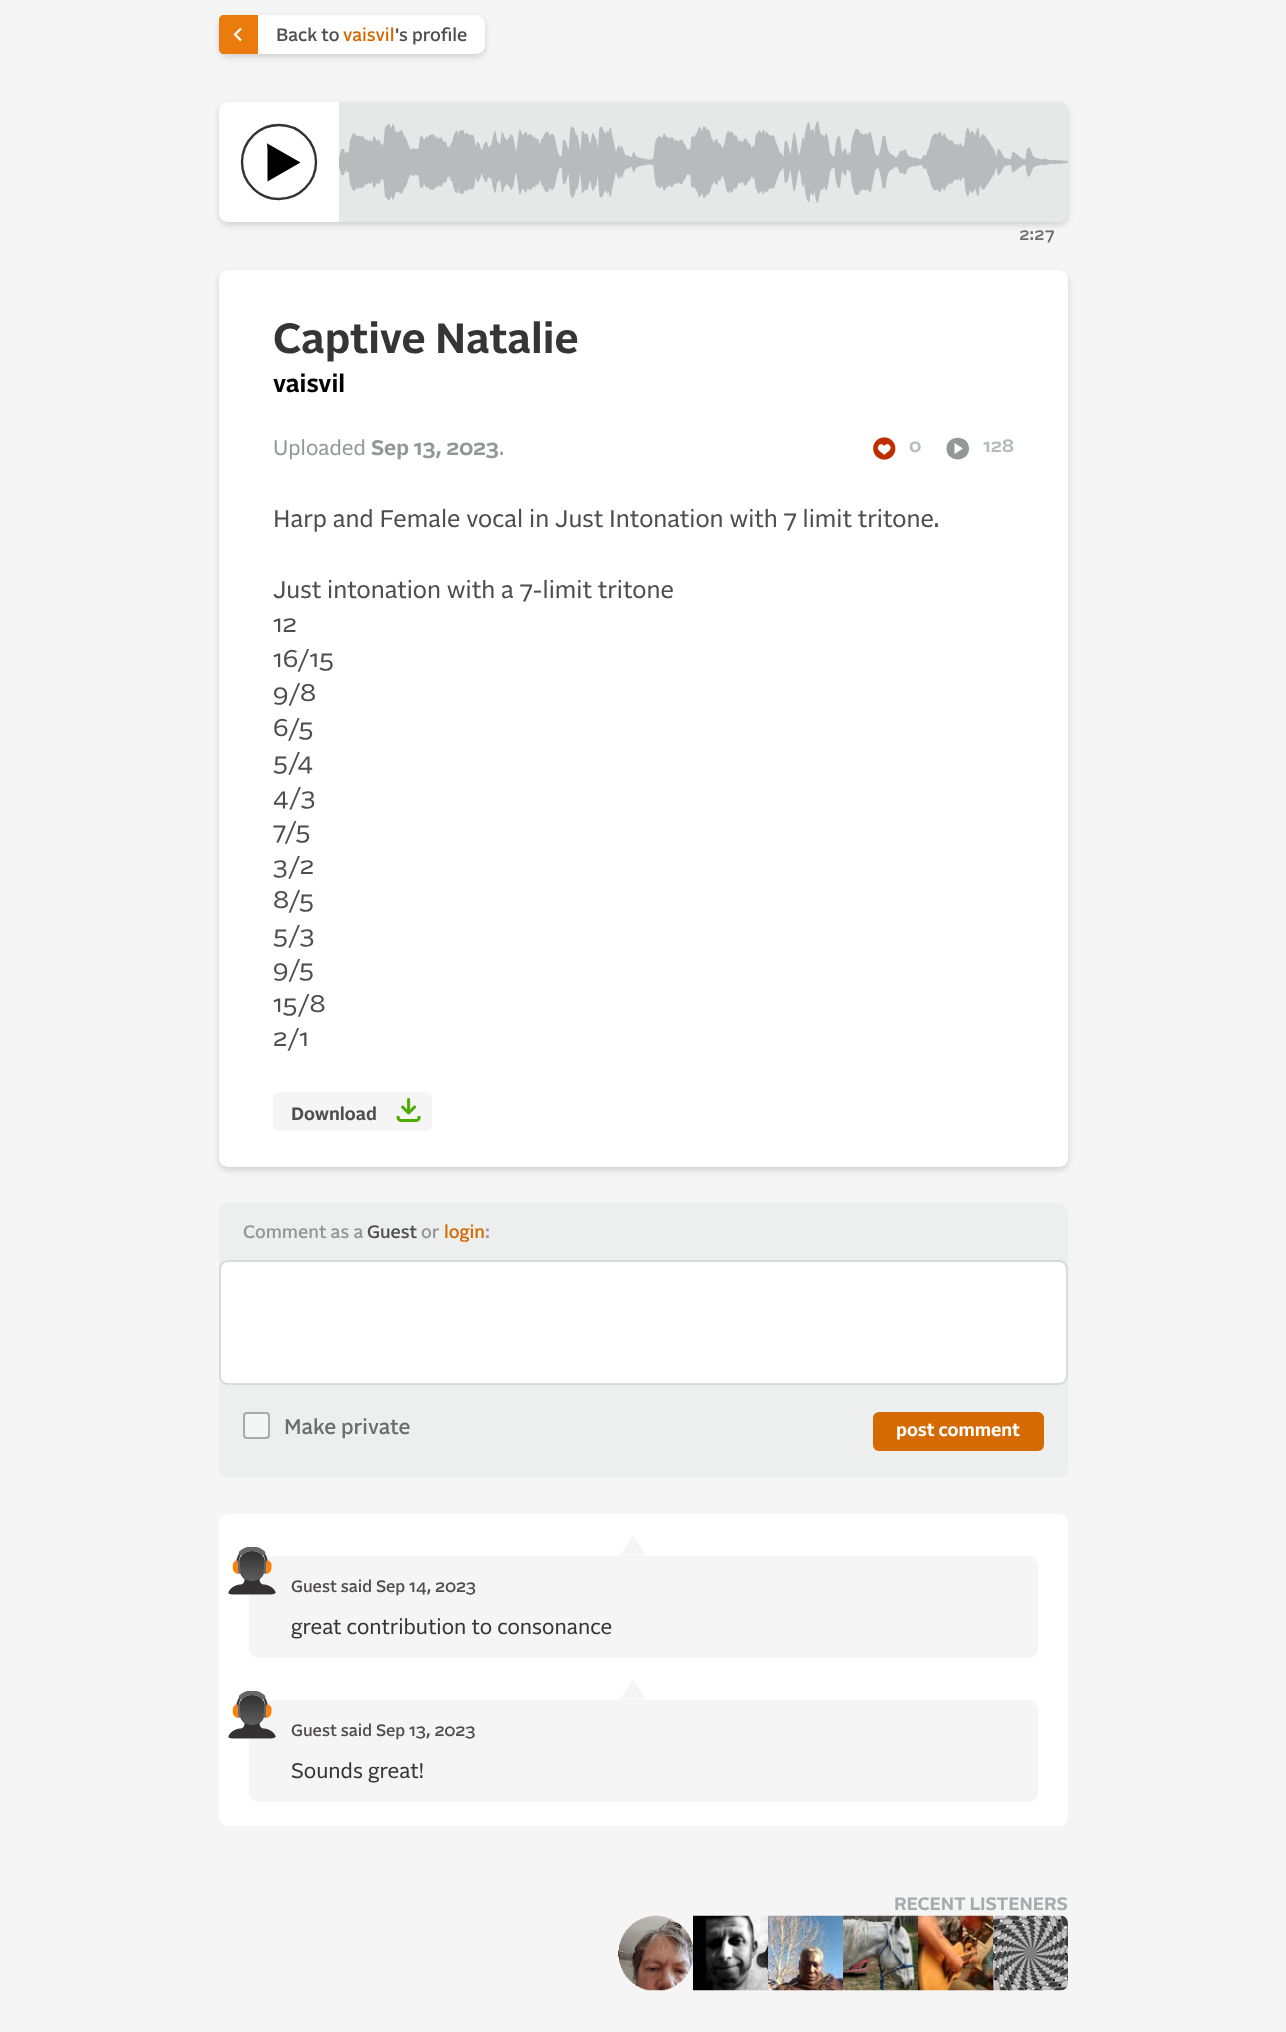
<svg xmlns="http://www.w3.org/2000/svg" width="1286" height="2032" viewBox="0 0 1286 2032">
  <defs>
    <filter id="blur1" x="-50%" y="-200%" width="200%" height="500%"><feGaussianBlur stdDeviation="3"/></filter>
  </defs>
  <rect width="100%" height="100%" fill="#f5f5f5"/>
  <rect x="219" y="18" width="266" height="39" rx="9" fill="#000000" fill-opacity="0.15" filter="url(#blur1)"/>
  <rect x="219" y="15" width="266" height="39" rx="9" fill="#ffffff"/>
  <path d="M224 15H258V54H224C221 54 219 52 219 49V20C219 17 221 15 224 15Z" fill="#eb7b0c"/>
  <path d="M241 40.5L235 34.5L241 28.5" fill="none" stroke="#ffffff" stroke-width="2.2"/>
  <text x="276" y="41" font-family="'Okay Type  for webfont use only'" font-size="18" font-weight="500" fill="#4f4d4d">Back to</text>
  <text x="343" y="41" font-family="'Okay Type  for webfont use only'" font-size="18" font-weight="500" fill="#d46a01">vaisvil</text>
  <text x="395" y="41" font-family="'Okay Type  for webfont use only'" font-size="18" font-weight="500" fill="#4f4d4d">'s profile</text>
  <rect x="219" y="105" width="849" height="120" rx="9" fill="#000000" fill-opacity="0.15" filter="url(#blur1)"/>
  <rect x="219" y="102" width="849" height="120" rx="9" fill="#e6e8e8"/>
  <path d="M228 102H339V222H228C223 222 219 218 219 213V111C219 106 223 102 228 102Z" fill="#ffffff"/>
  <circle cx="279" cy="162" r="37" fill="none" stroke="#333333" stroke-width="2.4"/>
  <path d="M267.5 181.5V150C267.5 142.5 265.5 142.5 270 145L300.5 162.5Z" fill="#000000"/>
  <image x="339" y="121" width="729" height="82" href="img1.png"/>
  <text x="1019" y="240" font-family="'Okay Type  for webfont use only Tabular'" font-size="16.5" font-weight="500" fill="#6e6d6d">2:27</text>
  <rect x="219" y="273" width="849" height="897" rx="9" fill="#000000" fill-opacity="0.15" filter="url(#blur1)"/>
  <rect x="219" y="270" width="849" height="897" rx="9" fill="#ffffff"/>
  <text x="273" y="353" font-family="'Okay Type  for webfont use only'" font-size="42" font-weight="bold" fill="#353535">Captive Natalie</text>
  <text x="273" y="392" font-family="'Okay Type  for webfont use only'" font-size="24.5" font-weight="bold" fill="#000000">vaisvil</text>
  <text x="273" y="455" font-family="'Okay Type  for webfont use only'" font-size="21" fill="#949797">Uploaded</text>
  <text x="371" y="455" font-family="'Okay Type  for webfont use only'" font-size="21" font-weight="bold" fill="#949797">Sep 13, 2023</text>
  <text x="499" y="455" font-family="'Okay Type  for webfont use only'" font-size="21" fill="#949797">.</text>
  <image x="873" y="437" width="23" height="23" href="img2.png"/>
  <text x="909" y="452" font-family="'Okay Type  for webfont use only'" font-size="18" font-weight="bold" fill="#b7bbbb">0</text>
  <path d="M946.5 448.5C946.5 434 969 434 969 448.5C969 463 946.5 463 946.5 448.5ZM954.5 443L963 448.5L954.5 454Z" fill="#949797" fill-rule="evenodd"/>
  <text x="983" y="452" font-family="'Okay Type  for webfont use only'" font-size="18" font-weight="bold" fill="#b7bbbb">128</text>
  <text x="273" y="527" font-family="'Okay Type  for webfont use only'" font-size="24" fill="#4f4d4d">Harp and Female vocal in Just Intonation with 7 limit tritone.</text>
  <text x="273" y="598" font-family="'Okay Type  for webfont use only'" font-size="24" fill="#4f4d4d">Just intonation with a 7-limit tritone</text>
  <text x="273" y="632" font-family="'Okay Type  for webfont use only'" font-size="24" fill="#4f4d4d">12</text>
  <text x="273" y="667" font-family="'Okay Type  for webfont use only'" font-size="24" fill="#4f4d4d">16/15</text>
  <text x="273" y="701" font-family="'Okay Type  for webfont use only'" font-size="24" fill="#4f4d4d">9/8</text>
  <text x="273" y="736" font-family="'Okay Type  for webfont use only'" font-size="24" fill="#4f4d4d">6/5</text>
  <text x="273" y="770" font-family="'Okay Type  for webfont use only'" font-size="24" fill="#4f4d4d">5/4</text>
  <text x="273" y="805" font-family="'Okay Type  for webfont use only'" font-size="24" fill="#4f4d4d">4/3</text>
  <text x="273" y="839" font-family="'Okay Type  for webfont use only'" font-size="24" fill="#4f4d4d">7/5</text>
  <text x="273" y="874" font-family="'Okay Type  for webfont use only'" font-size="24" fill="#4f4d4d">3/2</text>
  <text x="273" y="908" font-family="'Okay Type  for webfont use only'" font-size="24" fill="#4f4d4d">8/5</text>
  <text x="273" y="943" font-family="'Okay Type  for webfont use only'" font-size="24" fill="#4f4d4d">5/3</text>
  <text x="273" y="977" font-family="'Okay Type  for webfont use only'" font-size="24" fill="#4f4d4d">9/5</text>
  <text x="273" y="1012" font-family="'Okay Type  for webfont use only'" font-size="24" fill="#4f4d4d">15/8</text>
  <text x="273" y="1046" font-family="'Okay Type  for webfont use only'" font-size="24" fill="#4f4d4d">2/1</text>
  <rect x="273" y="1092" width="159" height="39" rx="6" fill="#f5f5f5"/>
  <text x="291" y="1120" font-family="'Okay Type  for webfont use only'" font-size="18" font-weight="bold" fill="#4f4d4d">Download</text>
  <image x="396" y="1098" width="25" height="24" href="img3.png"/>
  <rect x="219" y="1203" width="849" height="275" rx="9" fill="#edeeee"/>
  <text x="243" y="1238" font-family="'Okay Type  for webfont use only'" font-size="18" font-weight="500" fill="#949797">Comment as a</text>
  <text x="367" y="1238" font-family="'Okay Type  for webfont use only'" font-size="18" font-weight="500" fill="#4f4d4d">Guest</text>
  <text x="421" y="1238" font-family="'Okay Type  for webfont use only'" font-size="18" font-weight="500" fill="#949797">or</text>
  <text x="444" y="1238" font-family="'Okay Type  for webfont use only'" font-size="18" font-weight="500" fill="#d46a01">login</text>
  <text x="485" y="1238" font-family="'Okay Type  for webfont use only'" font-size="18" font-weight="500" fill="#949797">:</text>
  <rect x="220" y="1261" width="847" height="123" rx="8" fill="#ffffff" stroke="#d7dbdb" stroke-width="2"/>
  <rect x="244" y="1413" width="25" height="25" rx="3" fill="#f5f5f5" stroke="#a6abab" stroke-width="2"/>
  <text x="284" y="1434" font-family="'Okay Type  for webfont use only'" font-size="21" font-weight="500" fill="#6e6d6d">Make private</text>
  <rect x="873" y="1412" width="171" height="39" rx="6" fill="#d46a01"/>
  <text x="896" y="1436" font-family="'Okay Type  for webfont use only'" font-size="18" font-weight="bold" fill="#ffffff">post comment</text>
  <rect x="219" y="1514" width="849" height="312" rx="9" fill="#ffffff"/>
  <rect x="249" y="1556" width="789" height="102" rx="9" fill="#f5f5f5"/>
  <image x="228" y="1547" width="48" height="48" href="img4.png"/>
  <path d="M646.5 1555.5H619.5L633 1536Z" fill="#f5f5f5"/>
  <text x="291" y="1592" font-family="'Okay Type  for webfont use only'" font-size="16.5" font-weight="500" fill="#4f4d4d">Guest said Sep 14, 2023</text>
  <text x="291" y="1634" font-family="'Okay Type  for webfont use only'" font-size="21" fill="#353535">great contribution to consonance</text>
  <rect x="249" y="1700" width="789" height="102" rx="9" fill="#f5f5f5"/>
  <image x="228" y="1691" width="48" height="48" href="img4.png"/>
  <path d="M646.5 1699.5H619.5L633 1680Z" fill="#f5f5f5"/>
  <text x="291" y="1736" font-family="'Okay Type  for webfont use only'" font-size="16.5" font-weight="500" fill="#4f4d4d">Guest said Sep 13, 2023</text>
  <text x="291" y="1778" font-family="'Okay Type  for webfont use only'" font-size="21" fill="#353535">Sounds great!</text>
  <text x="894" y="1910" font-family="'Okay Type  for webfont use only'" font-size="18" font-weight="bold" fill="#a6abab">RECENT LISTENERS</text>
  <image x="618" y="1915" width="75" height="76" href="img5.png"/>
  <image x="693" y="1915" width="75" height="76" href="img6.png"/>
  <image x="768" y="1915" width="75" height="76" href="img7.png"/>
  <image x="843" y="1915" width="75" height="76" href="img8.png"/>
  <image x="918" y="1915" width="75" height="76" href="img9.png"/>
  <image x="993" y="1915" width="75" height="76" href="img10.png"/>
</svg>
